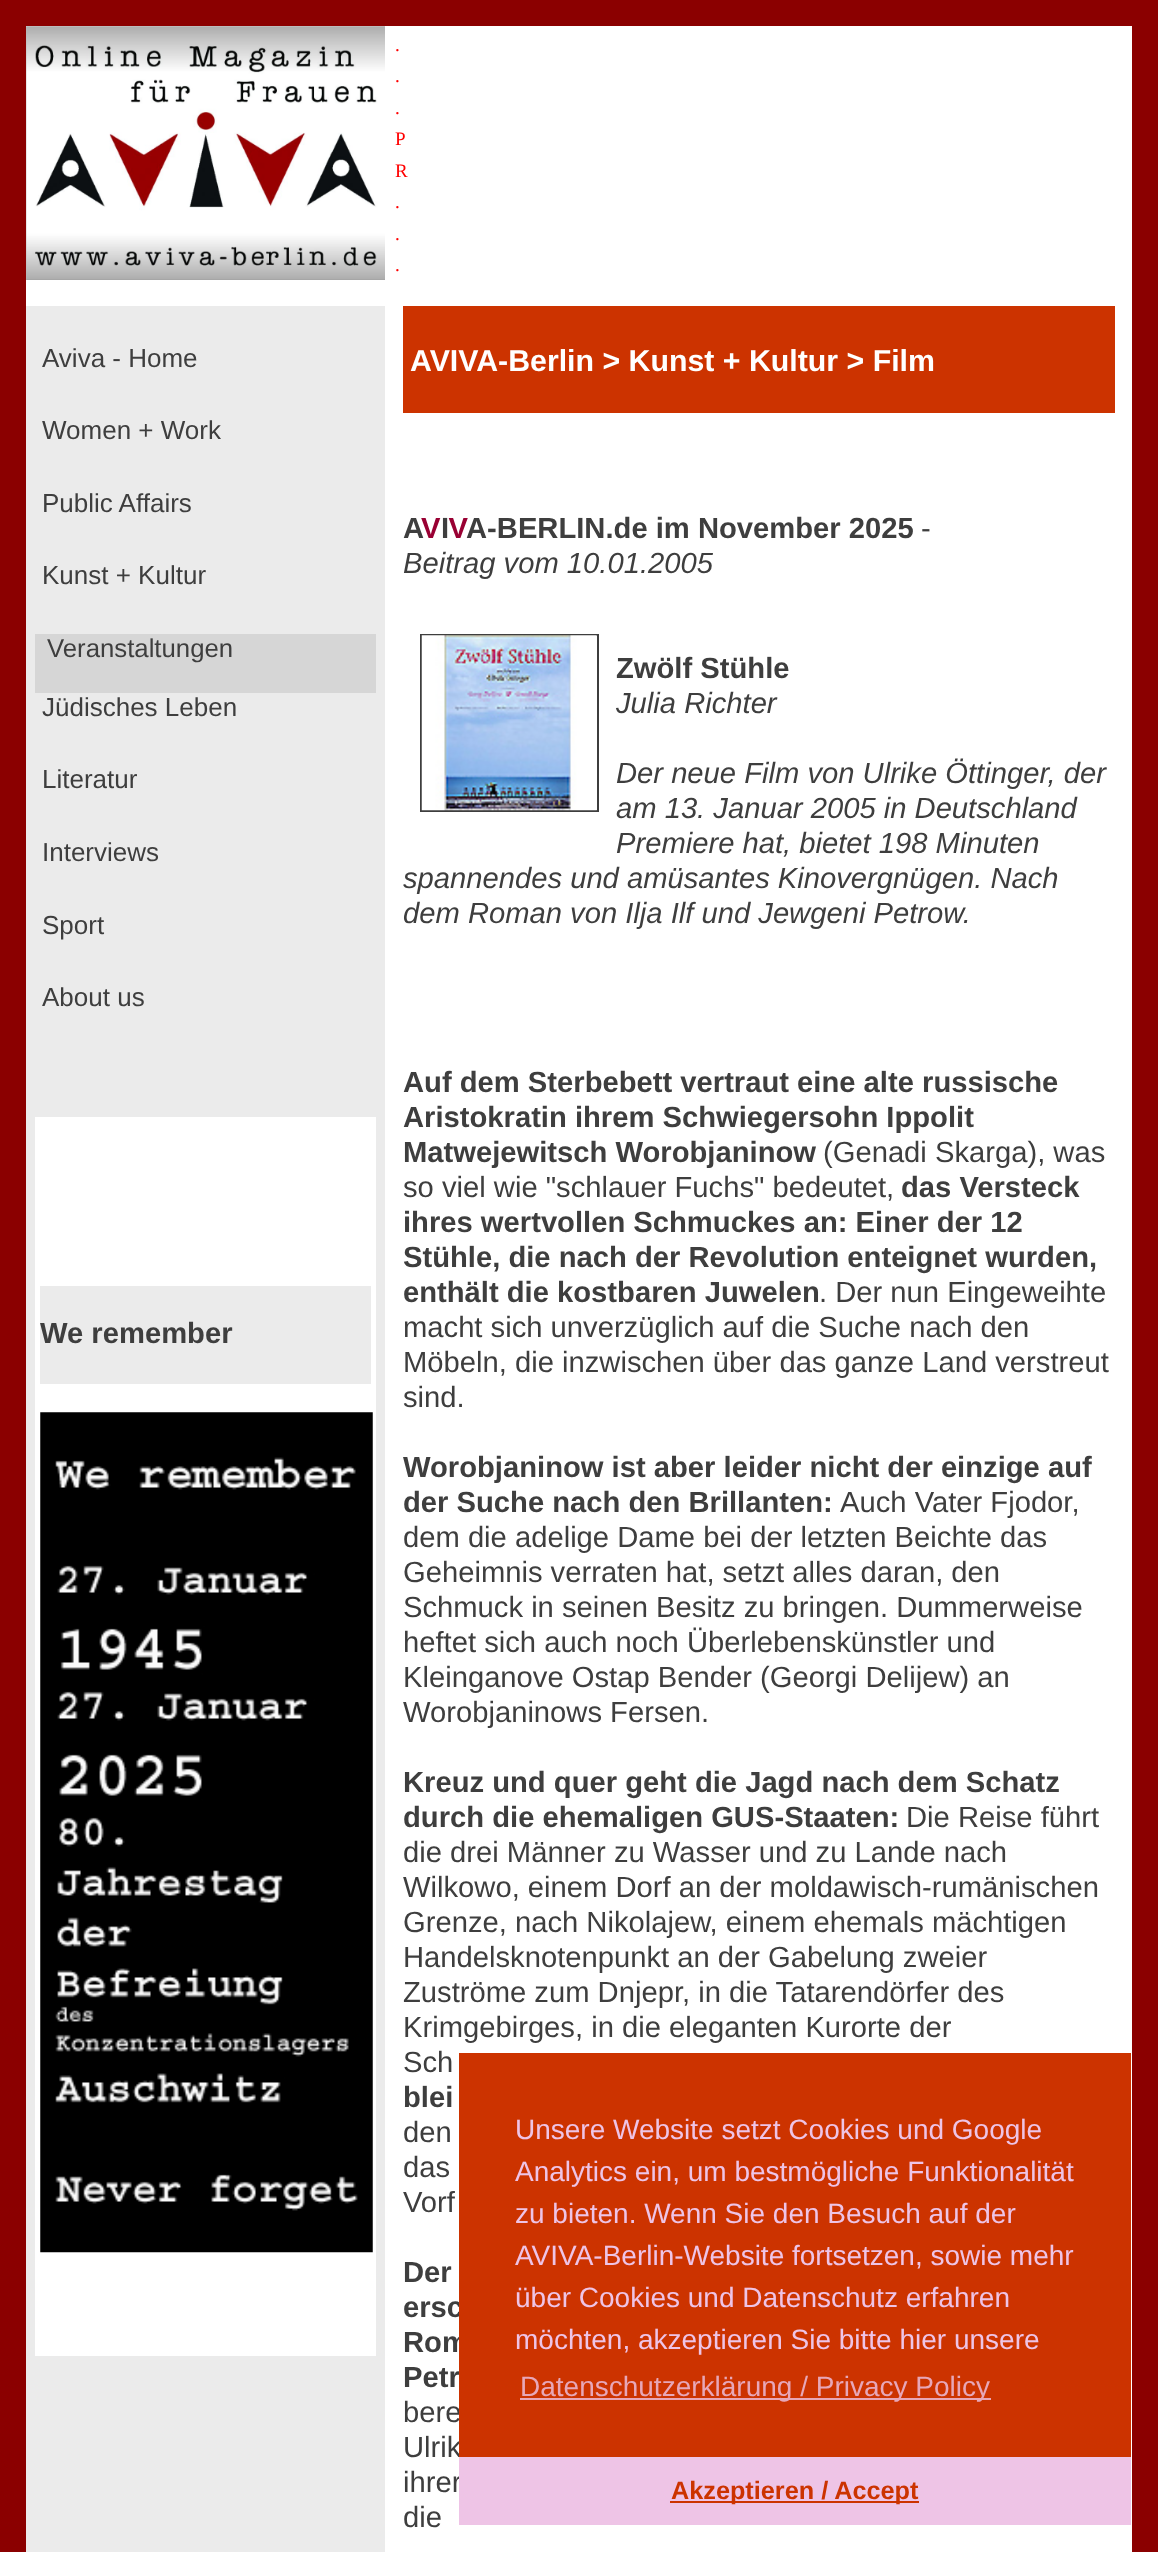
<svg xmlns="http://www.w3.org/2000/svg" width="1158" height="2552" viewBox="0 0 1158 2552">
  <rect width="100%" height="100%" fill="#8b0000"/>
  <rect x="26" y="26" width="1106" height="280" fill="#ffffff"/>
  <image x="26" y="26" width="359" height="254" href="img1.png"/>
  <text x="395" y="51" font-family="Liberation Serif" font-size="19" fill="#ff0000">.</text>
  <text x="395" y="82" font-family="Liberation Serif" font-size="19" fill="#ff0000">.</text>
  <text x="395" y="114" font-family="Liberation Serif" font-size="19" fill="#ff0000">.</text>
  <text x="395" y="145" font-family="Liberation Serif" font-size="19" fill="#ff0000">P</text>
  <text x="395" y="177" font-family="Liberation Serif" font-size="19" fill="#ff0000">R</text>
  <text x="395" y="208" font-family="Liberation Serif" font-size="19" fill="#ff0000">.</text>
  <text x="395" y="240" font-family="Liberation Serif" font-size="19" fill="#ff0000">.</text>
  <text x="395" y="271" font-family="Liberation Serif" font-size="19" fill="#ff0000">.</text>
  <rect x="26" y="306" width="359" height="2246" fill="#ebebeb"/>
  <text x="42" y="367" font-family="Liberation Sans" font-size="26" fill="#3e3e3e">Aviva - Home</text>
  <text x="42" y="439" font-family="Liberation Sans" font-size="26" fill="#3e3e3e">Women + Work</text>
  <text x="42" y="512" font-family="Liberation Sans" font-size="26" fill="#3e3e3e">Public Affairs</text>
  <text x="42" y="584" font-family="Liberation Sans" font-size="26" fill="#3e3e3e">Kunst + Kultur</text>
  <rect x="35" y="634" width="341" height="59" fill="#d6d6d6"/>
  <text x="47" y="657" font-family="Liberation Sans" font-size="25.75" fill="#3e3e3e">Veranstaltungen</text>
  <text x="42" y="716" font-family="Liberation Sans" font-size="26" fill="#3e3e3e">Jüdisches Leben</text>
  <text x="42" y="788" font-family="Liberation Sans" font-size="26" fill="#3e3e3e">Literatur</text>
  <text x="42" y="861" font-family="Liberation Sans" font-size="26" fill="#3e3e3e">Interviews</text>
  <text x="42" y="934" font-family="Liberation Sans" font-size="26" fill="#3e3e3e">Sport</text>
  <text x="42" y="1006" font-family="Liberation Sans" font-size="26" fill="#3e3e3e">About us</text>
  <rect x="35" y="1117" width="341" height="1239" fill="#ffffff"/>
  <rect x="40" y="1286" width="331" height="98" fill="#ebebeb"/>
  <text x="40" y="1343" font-family="Liberation Sans" font-size="29.2" font-weight="bold" fill="#3e3e3e">We remember</text>
  <image x="40" y="1412" width="333" height="841" href="img2.png"/>
  <rect x="385" y="306" width="747" height="2246" fill="#ffffff"/>
  <rect x="403" y="306" width="712" height="107" fill="#cc3300"/>
  <text x="410" y="371" font-family="Liberation Sans" font-size="30.3" font-weight="bold" fill="#ffffff">AVIVA-Berlin &gt; Kunst + Kultur &gt; Film</text>
  <text x="403" y="538" font-family="Liberation Sans" font-size="29.2" font-weight="bold" fill="#3e3e3e">A</text>
  <text x="421" y="538" font-family="Liberation Sans" font-size="29.2" font-weight="bold" fill="#990033">V V</text>
  <text x="466" y="538" font-family="Liberation Sans" font-size="29.2" font-weight="bold" fill="#3e3e3e">A-BERLIN.de im November 2025</text>
  <text x="441" y="538" font-family="Liberation Sans" font-size="29.2" font-weight="bold" fill="#3e3e3e">I</text>
  <text x="921" y="538" font-family="Liberation Sans" font-size="29.2" fill="#3e3e3e">-</text>
  <text x="403" y="573" font-family="Liberation Sans" font-size="29.2" font-style="italic" fill="#3e3e3e">Beitrag vom 10.01.2005</text>
  <rect x="421" y="635" width="177" height="176" fill="none" stroke="#3e3e3e" stroke-width="2"/>
  <image x="421" y="635" width="176" height="176" href="img3.png"/>
  <text x="616" y="678" font-family="Liberation Sans" font-size="29.2" font-weight="bold" fill="#3e3e3e">Zwölf Stühle</text>
  <text x="616" y="713" font-family="Liberation Sans" font-size="29.2" font-style="italic" fill="#3e3e3e">Julia Richter</text>
  <text x="616" y="783" font-family="Liberation Sans" font-size="29.2" font-style="italic" fill="#3e3e3e">Der neue Film von Ulrike Öttinger, der</text>
  <text x="616" y="818" font-family="Liberation Sans" font-size="29.2" font-style="italic" fill="#3e3e3e">am 13. Januar 2005 in Deutschland</text>
  <text x="616" y="853" font-family="Liberation Sans" font-size="29.2" font-style="italic" fill="#3e3e3e">Premiere hat, bietet 198 Minuten</text>
  <text x="403" y="888" font-family="Liberation Sans" font-size="29.2" font-style="italic" fill="#3e3e3e">spannendes und amüsantes Kinovergnügen. Nach</text>
  <text x="403" y="923" font-family="Liberation Sans" font-size="29.2" font-style="italic" fill="#3e3e3e">dem Roman von Ilja Ilf und Jewgeni Petrow.</text>
  <text x="403" y="1092" font-family="Liberation Sans" font-size="29.2" font-weight="bold" fill="#3e3e3e">Auf dem Sterbebett vertraut eine alte russische</text>
  <text x="403" y="1127" font-family="Liberation Sans" font-size="29.2" font-weight="bold" fill="#3e3e3e">Aristokratin ihrem Schwiegersohn Ippolit</text>
  <text x="403" y="1162" font-family="Liberation Sans" font-size="29.2" font-weight="bold" fill="#3e3e3e">Matwejewitsch Worobjaninow</text>
  <text x="823" y="1162" font-family="Liberation Sans" font-size="29.2" fill="#3e3e3e">(Genadi Skarga), was</text>
  <text x="403" y="1197" font-family="Liberation Sans" font-size="29.2" fill="#3e3e3e">so viel wie "schlauer Fuchs" bedeutet,</text>
  <text x="901" y="1197" font-family="Liberation Sans" font-size="29.2" font-weight="bold" fill="#3e3e3e">das Versteck</text>
  <text x="403" y="1232" font-family="Liberation Sans" font-size="29.2" font-weight="bold" fill="#3e3e3e">ihres wertvollen Schmuckes an: Einer der 12</text>
  <text x="403" y="1267" font-family="Liberation Sans" font-size="29.2" font-weight="bold" fill="#3e3e3e">Stühle, die nach der Revolution enteignet wurden,</text>
  <text x="403" y="1302" font-family="Liberation Sans" font-size="29.2" font-weight="bold" fill="#3e3e3e">enthält die kostbaren Juwelen</text>
  <text x="819" y="1302" font-family="Liberation Sans" font-size="29.2" fill="#3e3e3e">. Der nun Eingeweihte</text>
  <text x="403" y="1337" font-family="Liberation Sans" font-size="29.2" fill="#3e3e3e">macht sich unverzüglich auf die Suche nach den</text>
  <text x="403" y="1372" font-family="Liberation Sans" font-size="29.2" fill="#3e3e3e">Möbeln, die inzwischen über das ganze Land verstreut</text>
  <text x="403" y="1407" font-family="Liberation Sans" font-size="29.2" fill="#3e3e3e">sind.</text>
  <text x="403" y="1477" font-family="Liberation Sans" font-size="29.2" font-weight="bold" fill="#3e3e3e">Worobjaninow ist aber leider nicht der einzige auf</text>
  <text x="403" y="1512" font-family="Liberation Sans" font-size="29.2" font-weight="bold" fill="#3e3e3e">der Suche nach den Brillanten:</text>
  <text x="840" y="1512" font-family="Liberation Sans" font-size="29.2" fill="#3e3e3e">Auch Vater Fjodor,</text>
  <text x="403" y="1547" font-family="Liberation Sans" font-size="29.2" fill="#3e3e3e">dem die adelige Dame bei der letzten Beichte das</text>
  <text x="403" y="1582" font-family="Liberation Sans" font-size="29.2" fill="#3e3e3e">Geheimnis verraten hat, setzt alles daran, den</text>
  <text x="403" y="1617" font-family="Liberation Sans" font-size="29.2" fill="#3e3e3e">Schmuck in seinen Besitz zu bringen. Dummerweise</text>
  <text x="403" y="1652" font-family="Liberation Sans" font-size="29.2" fill="#3e3e3e">heftet sich auch noch Überlebenskünstler und</text>
  <text x="403" y="1687" font-family="Liberation Sans" font-size="29.2" fill="#3e3e3e">Kleinganove Ostap Bender (Georgi Delijew) an</text>
  <text x="403" y="1722" font-family="Liberation Sans" font-size="29.2" fill="#3e3e3e">Worobjaninows Fersen.</text>
  <text x="403" y="1792" font-family="Liberation Sans" font-size="29.2" font-weight="bold" fill="#3e3e3e">Kreuz und quer geht die Jagd nach dem Schatz</text>
  <text x="403" y="1827" font-family="Liberation Sans" font-size="29.2" font-weight="bold" fill="#3e3e3e">durch die ehemaligen GUS-Staaten:</text>
  <text x="906" y="1827" font-family="Liberation Sans" font-size="29.2" fill="#3e3e3e">Die Reise führt</text>
  <text x="403" y="1862" font-family="Liberation Sans" font-size="29.2" fill="#3e3e3e">die drei Männer zu Wasser und zu Lande nach</text>
  <text x="403" y="1897" font-family="Liberation Sans" font-size="29.2" fill="#3e3e3e">Wilkowo, einem Dorf an der moldawisch-rumänischen</text>
  <text x="403" y="1932" font-family="Liberation Sans" font-size="29.2" fill="#3e3e3e">Grenze, nach Nikolajew, einem ehemals mächtigen</text>
  <text x="403" y="1967" font-family="Liberation Sans" font-size="29.2" fill="#3e3e3e">Handelsknotenpunkt an der Gabelung zweier</text>
  <text x="403" y="2002" font-family="Liberation Sans" font-size="29.2" fill="#3e3e3e">Zuströme zum Dnjepr, in die Tatarendörfer des</text>
  <text x="403" y="2037" font-family="Liberation Sans" font-size="29.2" fill="#3e3e3e">Krimgebirges, in die eleganten Kurorte der</text>
  <text x="403" y="2072" font-family="Liberation Sans" font-size="29.2" fill="#3e3e3e">Sch</text>
  <text x="403" y="2107" font-family="Liberation Sans" font-size="29.2" font-weight="bold" fill="#3e3e3e">blei</text>
  <text x="403" y="2142" font-family="Liberation Sans" font-size="29.2" fill="#3e3e3e">den</text>
  <text x="403" y="2177" font-family="Liberation Sans" font-size="29.2" fill="#3e3e3e">das</text>
  <text x="403" y="2212" font-family="Liberation Sans" font-size="29.2" fill="#3e3e3e">Vorf</text>
  <text x="403" y="2282" font-family="Liberation Sans" font-size="29.2" font-weight="bold" fill="#3e3e3e">Der</text>
  <text x="403" y="2317" font-family="Liberation Sans" font-size="29.2" font-weight="bold" fill="#3e3e3e">ersc</text>
  <text x="403" y="2352" font-family="Liberation Sans" font-size="29.2" font-weight="bold" fill="#3e3e3e">Rom</text>
  <text x="403" y="2387" font-family="Liberation Sans" font-size="29.2" font-weight="bold" fill="#3e3e3e">Petr</text>
  <text x="403" y="2422" font-family="Liberation Sans" font-size="29.2" fill="#3e3e3e">bere</text>
  <text x="403" y="2457" font-family="Liberation Sans" font-size="29.2" fill="#3e3e3e">Ulrik</text>
  <text x="403" y="2492" font-family="Liberation Sans" font-size="29.2" fill="#3e3e3e">ihrer</text>
  <text x="403" y="2527" font-family="Liberation Sans" font-size="29.2" fill="#3e3e3e">die</text>
  <rect x="459" y="2053" width="672" height="404" fill="#cc3300"/>
  <text x="515" y="2139" font-family="Liberation Sans" font-size="28" fill="#eec4e6">Unsere Website setzt Cookies und Google</text>
  <text x="515" y="2181" font-family="Liberation Sans" font-size="28" fill="#eec4e6">Analytics ein, um bestmögliche Funktionalität</text>
  <text x="515" y="2223" font-family="Liberation Sans" font-size="28" fill="#eec4e6">zu bieten. Wenn Sie den Besuch auf der</text>
  <text x="515" y="2265" font-family="Liberation Sans" font-size="28" fill="#eec4e6">AVIVA-Berlin-Website fortsetzen, sowie mehr</text>
  <text x="515" y="2307" font-family="Liberation Sans" font-size="28" fill="#eec4e6">über Cookies und Datenschutz erfahren</text>
  <text x="515" y="2349" font-family="Liberation Sans" font-size="28" fill="#eec4e6">möchten, akzeptieren Sie bitte hier unsere</text>
  <rect x="520" y="2398" width="471" height="2" fill="#e7a7b8"/>
  <text x="520" y="2396" font-family="Liberation Sans" font-size="28" fill="#e7a7b8">Datenschutzerklärung / Privacy Policy</text>
  <rect x="459" y="2457" width="672" height="68" fill="#eec4e6"/>
  <rect x="670" y="2501" width="249" height="2" fill="#cc3300"/>
  <text x="671" y="2499" font-family="Liberation Sans" font-size="25.25" font-weight="bold" fill="#cc3300">Akzeptieren / Accept</text>
</svg>
